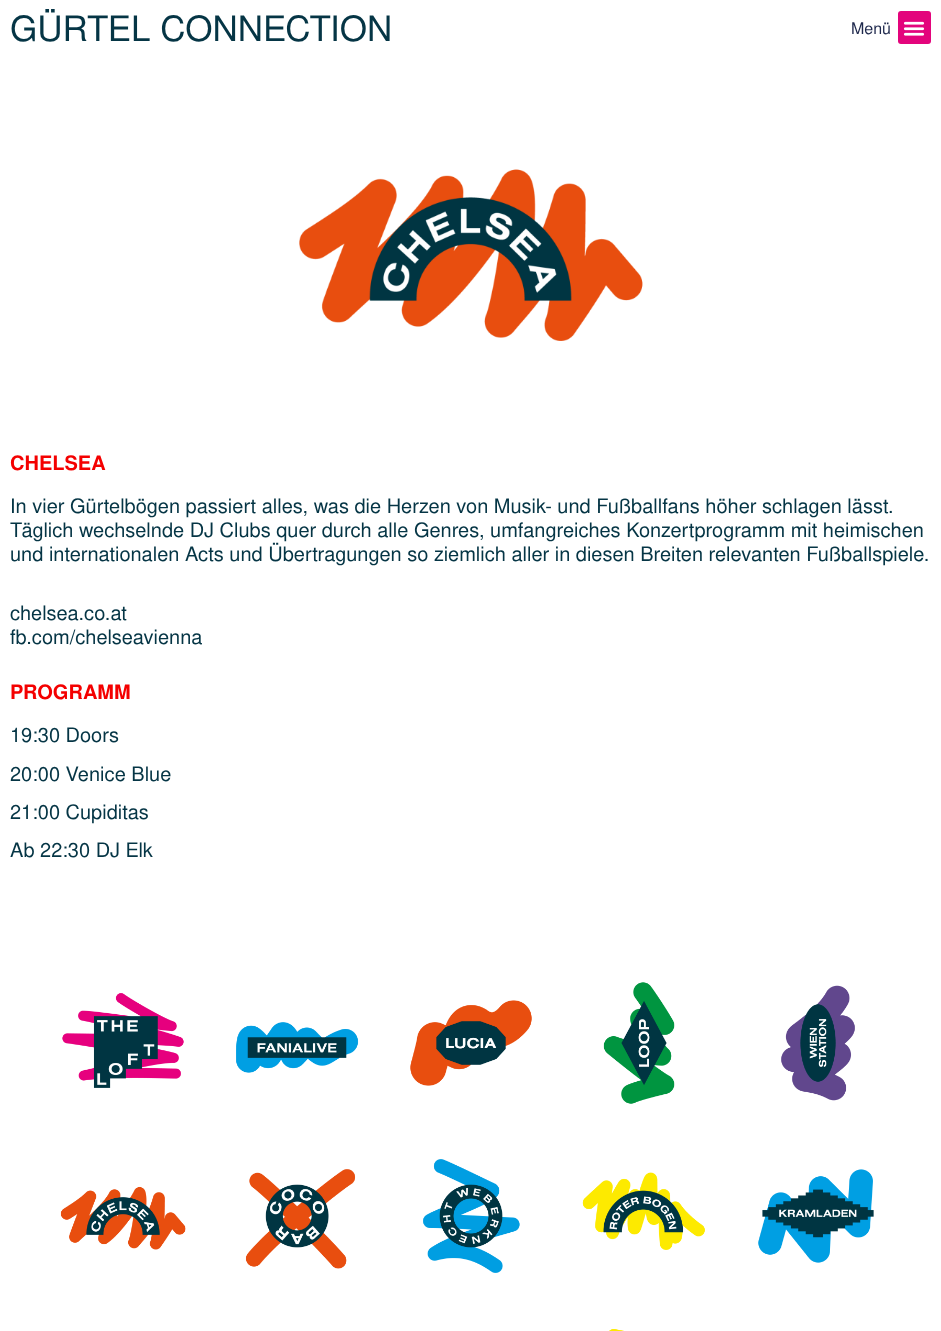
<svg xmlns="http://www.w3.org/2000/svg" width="941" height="1331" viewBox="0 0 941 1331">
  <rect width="100%" height="100%" fill="#ffffff"/>
  <text x="10" y="41" font-family="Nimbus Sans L" font-size="35" fill="#053545">GÜRTEL CONNECTION</text>
  <rect x="898" y="11" width="33" height="33" rx="3" fill="#e3047c"/>
  <text x="851" y="34" font-family="Nimbus Sans L" font-size="16" fill="#1e284c">Menü</text>
  <image x="903" y="21" width="22" height="15" href="img1.png"/>
  <image x="299" y="169" width="344" height="172" href="img2.png"/>
  <text x="10" y="470" font-family="Nimbus Sans L" font-size="20" font-weight="bold" fill="#f40000">CHELSEA</text>
  <text x="10" y="513" font-family="Nimbus Sans L" font-size="20" fill="#053545">In vier Gürtelbögen passiert alles, was die Herzen von Musik- und Fußballfans höher schlagen lässt.</text>
  <text x="10" y="537" font-family="Nimbus Sans L" font-size="20" fill="#053545">Täglich wechselnde DJ Clubs quer durch alle Genres, umfangreiches Konzertprogramm mit heimischen</text>
  <text x="10" y="561" font-family="Nimbus Sans L" font-size="20" fill="#053545">und internationalen Acts und Übertragungen so ziemlich aller in diesen Breiten relevanten Fußballspiele.</text>
  <text x="10" y="620" font-family="Nimbus Sans L" font-size="20" fill="#053545">chelsea.co.at</text>
  <text x="10" y="644" font-family="Nimbus Sans L" font-size="20" fill="#053545">fb.com/chelseavienna</text>
  <text x="10" y="699" font-family="Nimbus Sans L" font-size="20" font-weight="bold" fill="#f40000">PROGRAMM</text>
  <text x="10" y="742" font-family="Nimbus Sans L" font-size="20" fill="#053545">19:30 Doors</text>
  <text x="10" y="781" font-family="Nimbus Sans L" font-size="20" fill="#053545">20:00 Venice Blue</text>
  <text x="10" y="819" font-family="Nimbus Sans L" font-size="20" fill="#053545">21:00 Cupiditas</text>
  <text x="10" y="857" font-family="Nimbus Sans L" font-size="20" fill="#053545">Ab 22:30 DJ Elk</text>
  <image x="62" y="993" width="122" height="95" href="img3.png"/>
  <image x="236" y="1022" width="123" height="51" href="img4.png"/>
  <image x="410" y="1000" width="122" height="86" href="img5.png"/>
  <image x="603" y="982" width="72" height="122" href="img6.png"/>
  <image x="781" y="985" width="74" height="116" href="img7.png"/>
  <image x="60" y="1186" width="126" height="64" href="img8.png"/>
  <image x="245" y="1169" width="111" height="100" href="img9.png"/>
  <image x="423" y="1159" width="97" height="114" href="img10.png"/>
  <image x="582" y="1172" width="123" height="78" href="img11.png"/>
  <image x="758" y="1169" width="116" height="94" href="img12.png"/>
  <image x="609" y="1329" width="15" height="2" href="img13.png"/>
</svg>
